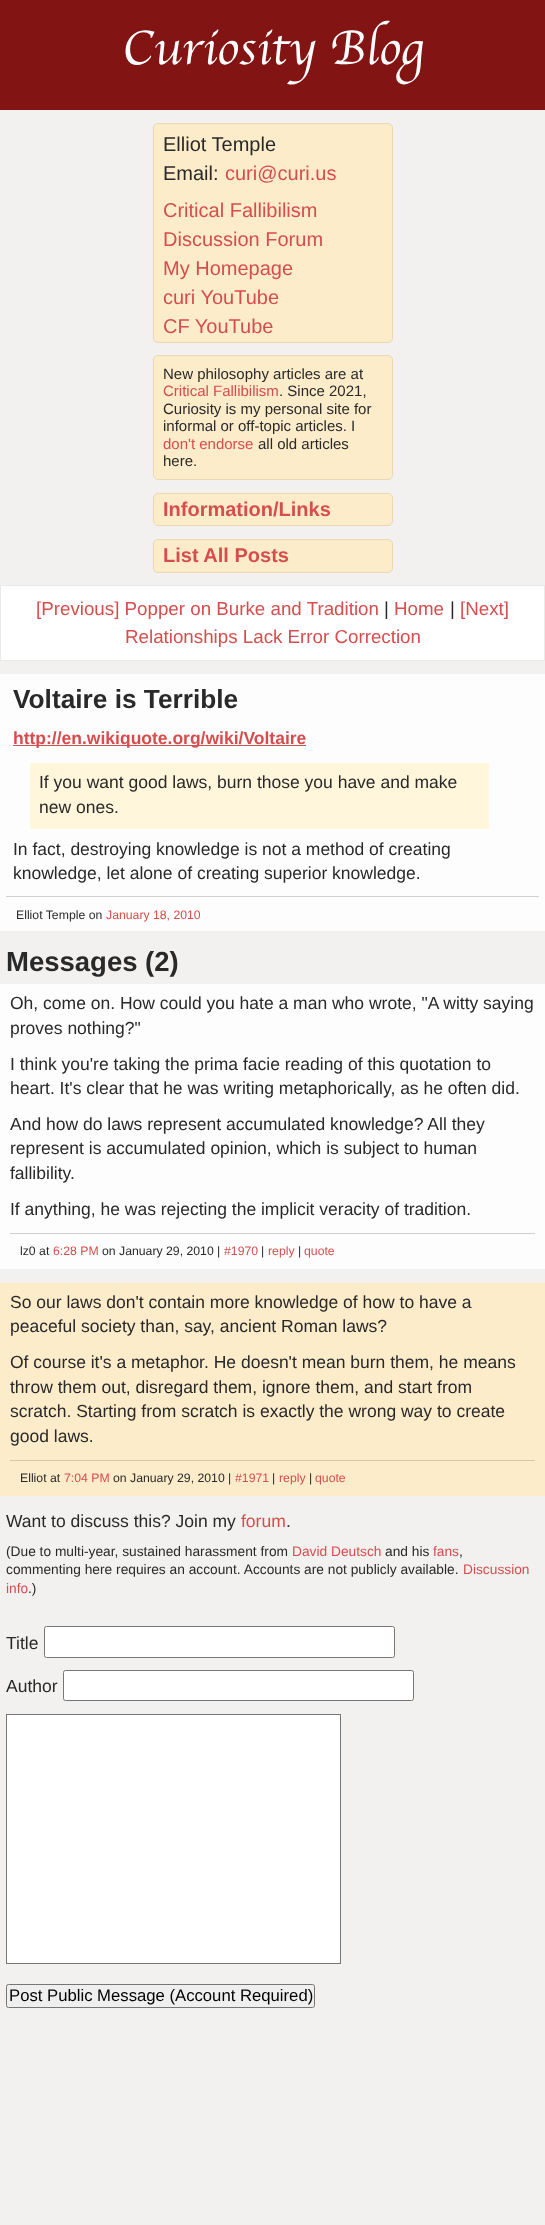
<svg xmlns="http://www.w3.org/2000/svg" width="545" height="2225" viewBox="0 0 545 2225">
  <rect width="100%" height="100%" fill="#f2f1f0"/>
  <rect x="0" y="0" width="545" height="110" fill="#821414"/>
  <text x="122" y="64" font-family="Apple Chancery" font-size="50" font-weight="100" fill="#ffffff">Curiosity Blog</text>
  <rect x="153.5" y="123.5" width="239" height="219" rx="4.5" fill="#fcecca" stroke="#ebd8b0"/>
  <text x="163" y="151" font-family="Liberation Sans" font-size="20" fill="#292929">Elliot Temple</text>
  <text x="163" y="180" font-family="Liberation Sans" font-size="20" fill="#292929">Email:</text>
  <text x="225" y="180" font-family="Liberation Sans" font-size="20" fill="#d64d4d">curi@curi.us</text>
  <text x="163" y="217" font-family="Liberation Sans" font-size="20" fill="#d64d4d">Critical Fallibilism</text>
  <text x="163" y="246" font-family="Liberation Sans" font-size="20" fill="#d64d4d">Discussion Forum</text>
  <text x="163" y="275" font-family="Liberation Sans" font-size="20" fill="#d64d4d">My Homepage</text>
  <text x="163" y="304" font-family="Liberation Sans" font-size="20" fill="#d64d4d">curi YouTube</text>
  <text x="163" y="333" font-family="Liberation Sans" font-size="20" fill="#d64d4d">CF YouTube</text>
  <rect x="153.5" y="355.5" width="239" height="124" rx="4.5" fill="#fcecca" stroke="#ebd8b0"/>
  <text x="163" y="379" font-family="Liberation Sans" font-size="15" fill="#292929">New philosophy articles are at</text>
  <text x="163" y="396" font-family="Liberation Sans" font-size="15" fill="#d64d4d">Critical Fallibilism</text>
  <text x="279" y="396" font-family="Liberation Sans" font-size="15" fill="#292929">. Since 2021,</text>
  <text x="163" y="414" font-family="Liberation Sans" font-size="15" fill="#292929">Curiosity is my personal site for</text>
  <text x="163" y="431" font-family="Liberation Sans" font-size="15" fill="#292929">informal or off-topic articles. I</text>
  <text x="163" y="449" font-family="Liberation Sans" font-size="15" fill="#d64d4d">don't endorse</text>
  <text x="258" y="449" font-family="Liberation Sans" font-size="15" fill="#292929">all old articles</text>
  <text x="163" y="466" font-family="Liberation Sans" font-size="15" fill="#292929">here.</text>
  <rect x="153.5" y="493.5" width="239" height="32" rx="4.5" fill="#fcecca" stroke="#ebd8b0"/>
  <text x="163" y="516" font-family="Liberation Sans" font-size="20" font-weight="bold" fill="#d64d4d">Information/Links</text>
  <rect x="153.5" y="539.5" width="239" height="33" rx="4.5" fill="#fcecca" stroke="#ebd8b0"/>
  <text x="163" y="562" font-family="Liberation Sans" font-size="20" font-weight="bold" fill="#d64d4d">List All Posts</text>
  <rect x="0.5" y="585.5" width="544" height="75" fill="#ffffff" stroke="#ebeae9"/>
  <text x="36" y="615" font-family="Liberation Sans" font-size="18.75" fill="#d64d4d">[Previous] Popper on Burke and Tradition</text>
  <text x="384" y="615" font-family="Liberation Sans" font-size="18.75" fill="#292929">|</text>
  <text x="394" y="615" font-family="Liberation Sans" font-size="18.75" fill="#d64d4d">Home</text>
  <text x="450" y="615" font-family="Liberation Sans" font-size="18.75" fill="#292929">|</text>
  <text x="460" y="615" font-family="Liberation Sans" font-size="18.75" fill="#d64d4d">[Next]</text>
  <text x="125" y="643" font-family="Liberation Sans" font-size="18.75" fill="#d64d4d">Relationships Lack Error Correction</text>
  <rect x="0" y="674" width="545" height="257" fill="#fdfdfd"/>
  <text x="13" y="708" font-family="Liberation Sans" font-size="26.25" font-weight="bold" fill="#292929">Voltaire is Terrible</text>
  <rect x="13" y="745" width="293" height="1" fill="#d64d4d"/>
  <text x="13" y="744" font-family="Liberation Sans" font-size="17.5" font-weight="bold" fill="#d64d4d">http://en.wikiquote.org/wiki/Voltaire</text>
  <rect x="30" y="763" width="459" height="66" fill="#fff6db"/>
  <text x="39" y="788" font-family="Liberation Sans" font-size="17.5" fill="#292929">If you want good laws, burn those you have and make</text>
  <text x="39" y="813" font-family="Liberation Sans" font-size="17.5" fill="#292929">new ones.</text>
  <text x="13" y="855" font-family="Liberation Sans" font-size="17.5" fill="#292929">In fact, destroying knowledge is not a method of creating</text>
  <text x="13" y="879" font-family="Liberation Sans" font-size="17.5" fill="#292929">knowledge, let alone of creating superior knowledge.</text>
  <rect x="6" y="896" width="533" height="1" fill="#d0d0d0"/>
  <text x="16" y="919" font-family="Liberation Sans" font-size="12.25" fill="#292929">Elliot Temple on</text>
  <text x="106" y="919" font-family="Liberation Sans" font-size="12.25" fill="#d64d4d">January 18, 2010</text>
  <text x="6" y="971" font-family="Liberation Sans" font-size="27.5" font-weight="bold" fill="#292929">Messages (2)</text>
  <rect x="0" y="984" width="545" height="285" fill="#fdfdfd"/>
  <text x="10" y="1009" font-family="Liberation Sans" font-size="17.5" fill="#292929">Oh, come on. How could you hate a man who wrote, "A witty saying</text>
  <text x="10" y="1034" font-family="Liberation Sans" font-size="17.5" fill="#292929">proves nothing?"</text>
  <text x="10" y="1070" font-family="Liberation Sans" font-size="17.5" fill="#292929">I think you're taking the prima facie reading of this quotation to</text>
  <text x="10" y="1094" font-family="Liberation Sans" font-size="17.5" fill="#292929">heart. It's clear that he was writing metaphorically, as he often did.</text>
  <text x="10" y="1130" font-family="Liberation Sans" font-size="17.5" fill="#292929">And how do laws represent accumulated knowledge? All they</text>
  <text x="10" y="1154" font-family="Liberation Sans" font-size="17.5" fill="#292929">represent is accumulated opinion, which is subject to human</text>
  <text x="10" y="1179" font-family="Liberation Sans" font-size="17.5" fill="#292929">fallibility.</text>
  <text x="10" y="1215" font-family="Liberation Sans" font-size="17.5" fill="#292929">If anything, he was rejecting the implicit veracity of tradition.</text>
  <rect x="10" y="1233" width="525" height="1" fill="#d0d0d0"/>
  <text x="20" y="1255" font-family="Liberation Sans" font-size="12.25" fill="#292929">lz0 at</text>
  <text x="53" y="1255" font-family="Liberation Sans" font-size="12.25" fill="#d64d4d">6:28 PM</text>
  <text x="102" y="1255" font-family="Liberation Sans" font-size="12.25" fill="#292929">on January 29, 2010 |</text>
  <text x="224" y="1255" font-family="Liberation Sans" font-size="12.25" fill="#d64d4d">#1970</text>
  <text x="261" y="1255" font-family="Liberation Sans" font-size="12.25" fill="#292929">|</text>
  <text x="268" y="1255" font-family="Liberation Sans" font-size="12.25" fill="#d64d4d">reply</text>
  <text x="298" y="1255" font-family="Liberation Sans" font-size="12.25" fill="#292929">|</text>
  <text x="304" y="1255" font-family="Liberation Sans" font-size="12.25" fill="#d64d4d">quote</text>
  <rect x="0" y="1283" width="545" height="213" fill="#fcecca"/>
  <text x="10" y="1308" font-family="Liberation Sans" font-size="17.5" fill="#292929">So our laws don't contain more knowledge of how to have a</text>
  <text x="10" y="1332" font-family="Liberation Sans" font-size="17.5" fill="#292929">peaceful society than, say, ancient Roman laws?</text>
  <text x="10" y="1368" font-family="Liberation Sans" font-size="17.5" fill="#292929">Of course it's a metaphor. He doesn't mean burn them, he means</text>
  <text x="10" y="1393" font-family="Liberation Sans" font-size="17.5" fill="#292929">throw them out, disregard them, ignore them, and start from</text>
  <text x="10" y="1417" font-family="Liberation Sans" font-size="17.5" fill="#292929">scratch. Starting from scratch is exactly the wrong way to create</text>
  <text x="10" y="1442" font-family="Liberation Sans" font-size="17.5" fill="#292929">good laws.</text>
  <rect x="10" y="1460" width="525" height="1" fill="#d3c8af"/>
  <text x="20" y="1482" font-family="Liberation Sans" font-size="12.25" fill="#292929">Elliot at</text>
  <text x="64" y="1482" font-family="Liberation Sans" font-size="12.25" fill="#d64d4d">7:04 PM</text>
  <text x="113" y="1482" font-family="Liberation Sans" font-size="12.25" fill="#292929">on January 29, 2010 |</text>
  <text x="235" y="1482" font-family="Liberation Sans" font-size="12.25" fill="#d64d4d">#1971</text>
  <text x="272" y="1482" font-family="Liberation Sans" font-size="12.25" fill="#292929">|</text>
  <text x="279" y="1482" font-family="Liberation Sans" font-size="12.25" fill="#d64d4d">reply</text>
  <text x="309" y="1482" font-family="Liberation Sans" font-size="12.25" fill="#292929">|</text>
  <text x="315" y="1482" font-family="Liberation Sans" font-size="12.25" fill="#d64d4d">quote</text>
  <text x="6" y="1527" font-family="Liberation Sans" font-size="17.5" fill="#292929">Want to discuss this? Join my</text>
  <text x="241" y="1527" font-family="Liberation Sans" font-size="17.5" fill="#d64d4d">forum</text>
  <text x="286" y="1527" font-family="Liberation Sans" font-size="17.5" fill="#292929">.</text>
  <text x="6" y="1556" font-family="Liberation Sans" font-size="13.75" fill="#292929">(Due to multi-year, sustained harassment from</text>
  <text x="292" y="1556" font-family="Liberation Sans" font-size="13.75" fill="#d64d4d">David Deutsch</text>
  <text x="385" y="1556" font-family="Liberation Sans" font-size="13.75" fill="#292929">and his</text>
  <text x="433" y="1556" font-family="Liberation Sans" font-size="13.75" fill="#d64d4d">fans</text>
  <text x="459" y="1556" font-family="Liberation Sans" font-size="13.75" fill="#292929">,</text>
  <text x="6" y="1574" font-family="Liberation Sans" font-size="13.75" fill="#292929">commenting here requires an account. Accounts are not publicly available.</text>
  <text x="463" y="1574" font-family="Liberation Sans" font-size="13.75" fill="#d64d4d">Discussion</text>
  <text x="6" y="1593" font-family="Liberation Sans" font-size="13.75" fill="#d64d4d">info</text>
  <text x="28" y="1593" font-family="Liberation Sans" font-size="13.75" fill="#292929">.)</text>
  <text x="6" y="1649" font-family="Liberation Sans" font-size="17.5" fill="#292929">Title</text>
  <rect x="44.5" y="1626.5" width="350" height="31" rx="2" fill="#ffffff" stroke="#767676"/>
  <text x="6" y="1692" font-family="Liberation Sans" font-size="17.5" fill="#292929">Author</text>
  <rect x="63.5" y="1670.5" width="350" height="30" rx="2" fill="#ffffff" stroke="#767676"/>
  <rect x="6.5" y="1714.5" width="334" height="249" fill="#ffffff" stroke="#767676"/>
  <rect x="6.5" y="1984.5" width="308" height="23" rx="2" fill="#efefef" stroke="#767676"/>
  <text x="9" y="2001" font-family="Liberation Sans" font-size="16.7" fill="#000000">Post Public Message (Account Required)</text>
</svg>
